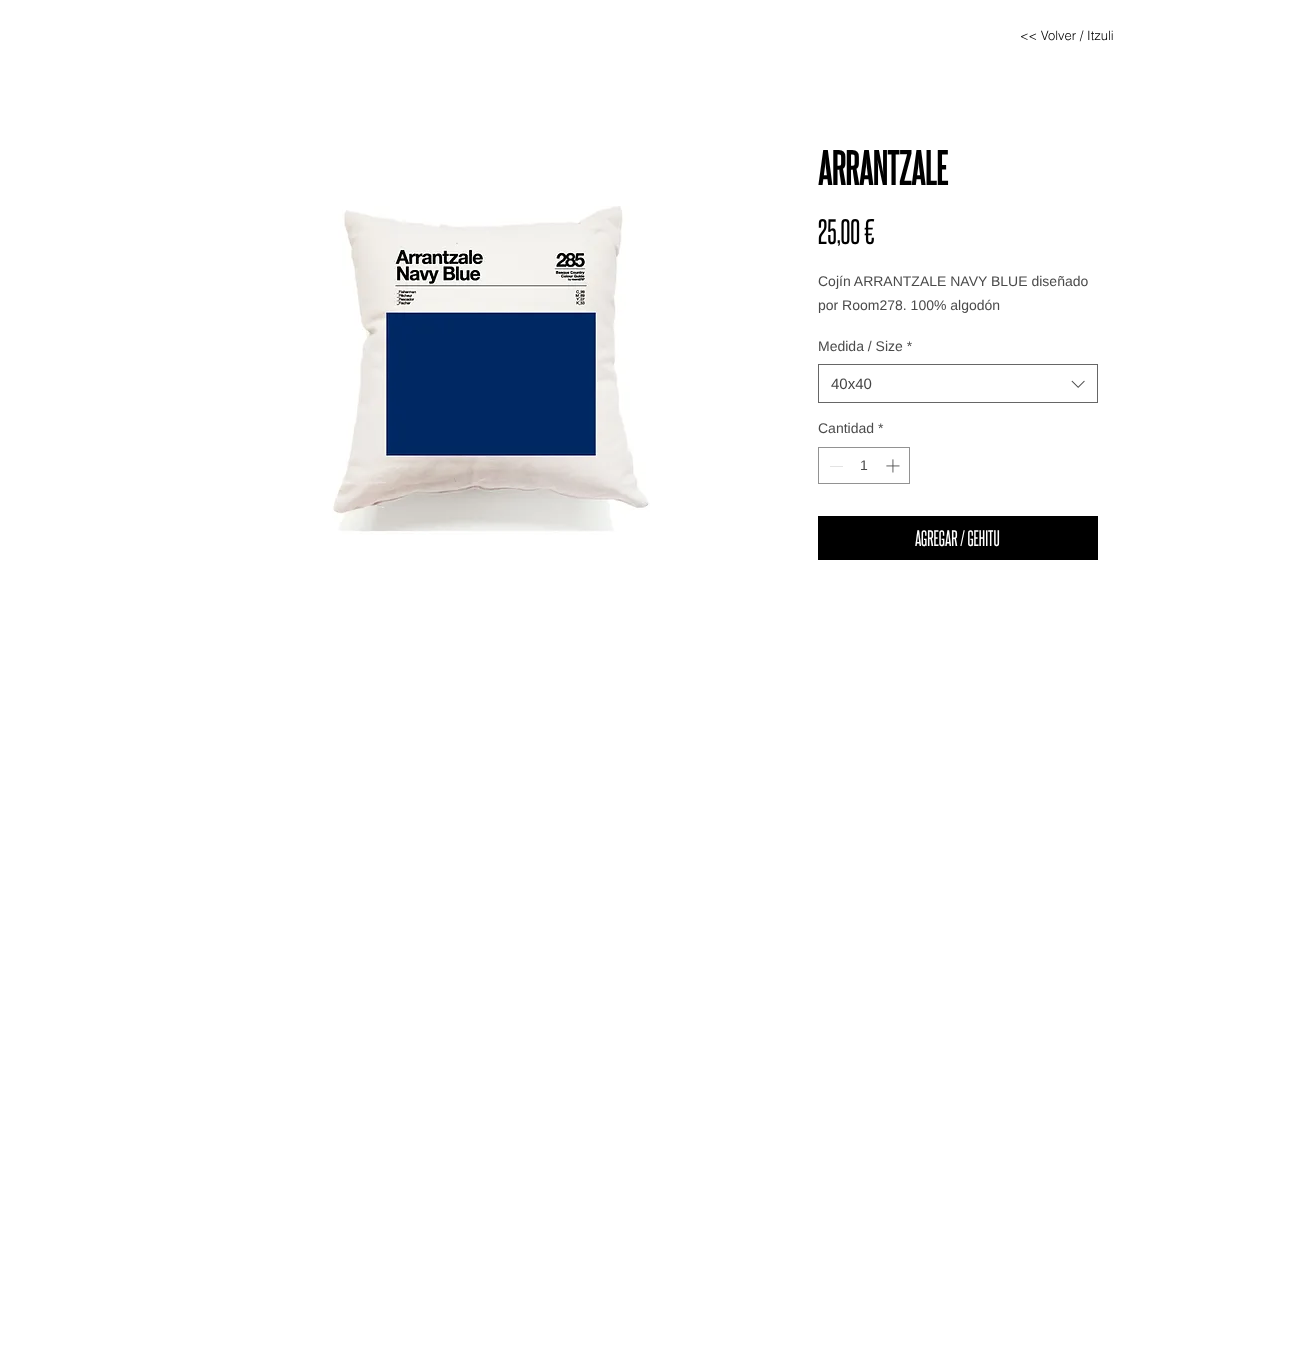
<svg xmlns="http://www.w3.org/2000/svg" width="1295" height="1352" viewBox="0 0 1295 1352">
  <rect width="100%" height="100%" fill="#ffffff"/>
  <text x="1020" y="40" font-family="helvetica" font-size="13" font-weight="300" fill="#000000">&lt;&lt; Volver / Itzuli</text>
  <image x="332" y="206" width="318" height="329" href="img1.png"/>
  <text x="818" y="185" font-family="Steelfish" font-size="41" font-weight="bold" fill="#000000">ARRANTZALE</text>
  <text x="818" y="244" font-family="Steelfish" font-size="30" fill="#000000">25,00 €</text>
  <text x="818" y="286" font-family="Liberation Sans" font-size="14" fill="#4a4a4a">Cojín ARRANTZALE NAVY BLUE diseñado</text>
  <text x="818" y="310" font-family="Liberation Sans" font-size="14" fill="#4a4a4a">por Room278. 100% algodón</text>
  <text x="818" y="351" font-family="Liberation Sans" font-size="14" fill="#4a4a4a">Medida / Size *</text>
  <rect x="818.5" y="364.5" width="279" height="38" fill="none" stroke="#666666"/>
  <text x="831" y="389" font-family="Liberation Sans" font-size="15" fill="#444444">40x40</text>
  <image x="1071" y="380" width="14" height="8" href="img2.png"/>
  <text x="818" y="433" font-family="Liberation Sans" font-size="14" fill="#4a4a4a">Cantidad *</text>
  <rect x="818.5" y="447.5" width="91" height="36" fill="none" stroke="#929292"/>
  <rect x="830" y="466" width="13" height="1" fill="#e3e3e3"/>
  <text x="860" y="470" font-family="Liberation Sans" font-size="14" fill="#4a4a4a">1</text>
  <image x="886" y="459" width="14" height="14" href="img3.png"/>
  <rect x="818" y="516" width="280" height="44" fill="#000000"/>
  <text x="915" y="546" font-family="Steelfish" font-size="19" fill="#ffffff">AGREGAR / GEHITU</text>
</svg>
